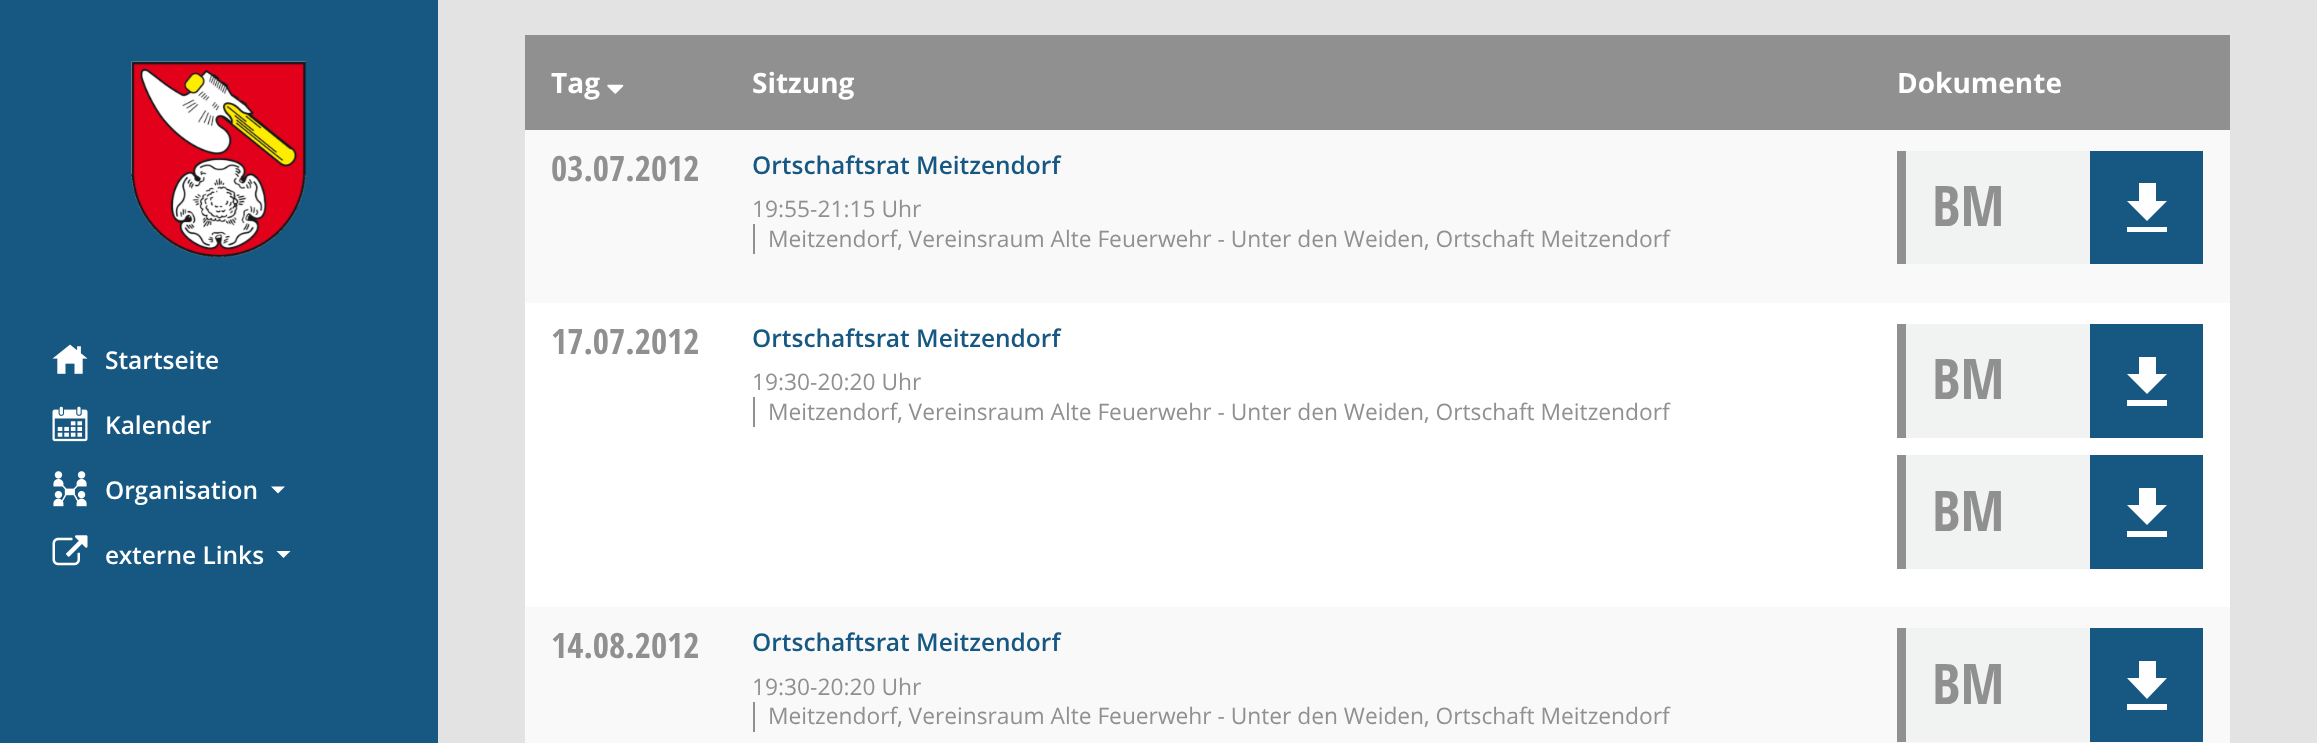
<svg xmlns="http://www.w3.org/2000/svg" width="2317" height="743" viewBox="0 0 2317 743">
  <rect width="100%" height="100%" fill="#e3e3e3"/>
  <rect x="0" y="0" width="438" height="743" fill="#175882"/>
  <image x="131" y="61" width="176" height="197" href="img1.png"/>
  <image x="52" y="344" width="36" height="30" href="img2.png"/>
  <text x="105" y="369" font-family="Open Sans" font-size="24.5" font-weight="600" fill="#ffffff">Startseite</text>
  <image x="52" y="406" width="36" height="36" href="img3.png"/>
  <text x="105" y="434" font-family="Open Sans" font-size="24.5" font-weight="600" fill="#ffffff">Kalender</text>
  <image x="53" y="471" width="34" height="36" href="img4.png"/>
  <text x="105" y="499" font-family="Open Sans" font-size="24.5" font-weight="600" fill="#ffffff">Organisation</text>
  <path d="M271 486.5H285L278 493.5Z" fill="#ffffff"/>
  <image x="52" y="535" width="36" height="31" href="img5.png"/>
  <text x="105" y="564" font-family="Open Sans" font-size="24.5" font-weight="600" fill="#ffffff">externe Links</text>
  <path d="M276.5 551H290.5L283.5 558Z" fill="#ffffff"/>
  <rect x="525" y="303" width="1705" height="304" fill="#ffffff"/>
  <rect x="525" y="35" width="1705" height="95" fill="#909090"/>
  <text x="551" y="93" font-family="Open Sans" font-size="28" font-weight="bold" fill="#ffffff">Tag</text>
  <image x="607" y="84" width="17" height="10" href="img6.png"/>
  <text x="752" y="93" font-family="Open Sans" font-size="28" font-weight="bold" fill="#ffffff">Sitzung</text>
  <text x="1897" y="93" font-family="Open Sans" font-size="28" font-weight="bold" fill="#ffffff">Dokumente</text>
  <rect x="525" y="130" width="1705" height="173" fill="#f9f9f9"/>
  <text x="551" y="181" font-family="Open Sans Condensed" font-size="35" font-weight="bold" fill="#909090">03.07.2012</text>
  <text x="752" y="174" font-family="Open Sans" font-size="24.5" font-weight="600" fill="#175882">Ortschaftsrat Meitzendorf</text>
  <text x="752" y="217" font-family="Open Sans" font-size="22.75" fill="#909090">19:55-21:15 Uhr</text>
  <rect x="753" y="224" width="2" height="30" fill="#909090"/>
  <text x="768" y="247" font-family="Open Sans" font-size="22.75" fill="#909090">Meitzendorf, Vereinsraum Alte Feuerwehr - Unter den Weiden, Ortschaft Meitzendorf</text>
  <rect x="1906" y="151" width="184" height="113" fill="#f0f3f2"/>
  <rect x="1897" y="151" width="9" height="113" fill="#909090"/>
  <text x="1932" y="226" font-family="Open Sans Condensed" font-size="56" font-weight="bold" fill="#909090">BM</text>
  <rect x="2090" y="151" width="113" height="113" fill="#175882"/>
  <path d="M2167 201H2156V183H2139V201H2127L2147 221ZM2127 227V232H2167V227Z" fill="#ffffff"/>
  <text x="551" y="354" font-family="Open Sans Condensed" font-size="35" font-weight="bold" fill="#909090">17.07.2012</text>
  <text x="752" y="347" font-family="Open Sans" font-size="24.5" font-weight="600" fill="#175882">Ortschaftsrat Meitzendorf</text>
  <text x="752" y="390" font-family="Open Sans" font-size="22.75" fill="#909090">19:30-20:20 Uhr</text>
  <rect x="753" y="397" width="2" height="30" fill="#909090"/>
  <text x="768" y="420" font-family="Open Sans" font-size="22.75" fill="#909090">Meitzendorf, Vereinsraum Alte Feuerwehr - Unter den Weiden, Ortschaft Meitzendorf</text>
  <rect x="1906" y="324" width="184" height="114" fill="#f0f3f2"/>
  <rect x="1897" y="324" width="9" height="114" fill="#909090"/>
  <text x="1932" y="399" font-family="Open Sans Condensed" font-size="56" font-weight="bold" fill="#909090">BM</text>
  <rect x="2090" y="324" width="113" height="114" fill="#175882"/>
  <path d="M2167 374H2156V357H2139V374H2127L2147 394ZM2127 400V406H2167V400Z" fill="#ffffff"/>
  <rect x="1906" y="455" width="184" height="114" fill="#f0f3f2"/>
  <rect x="1897" y="455" width="9" height="114" fill="#909090"/>
  <text x="1932" y="531" font-family="Open Sans Condensed" font-size="56" font-weight="bold" fill="#909090">BM</text>
  <rect x="2090" y="455" width="113" height="114" fill="#175882"/>
  <path d="M2167 505H2156V488H2139V505H2127L2147 525ZM2127 531V537H2167V531Z" fill="#ffffff"/>
  <rect x="525" y="607" width="1705" height="136" fill="#f9f9f9"/>
  <text x="551" y="658" font-family="Open Sans Condensed" font-size="35" font-weight="bold" fill="#909090">14.08.2012</text>
  <text x="752" y="651" font-family="Open Sans" font-size="24.5" font-weight="600" fill="#175882">Ortschaftsrat Meitzendorf</text>
  <text x="752" y="695" font-family="Open Sans" font-size="22.75" fill="#909090">19:30-20:20 Uhr</text>
  <rect x="753" y="702" width="2" height="30" fill="#909090"/>
  <text x="768" y="724" font-family="Open Sans" font-size="22.75" fill="#909090">Meitzendorf, Vereinsraum Alte Feuerwehr - Unter den Weiden, Ortschaft Meitzendorf</text>
  <rect x="1906" y="628" width="184" height="114" fill="#f0f3f2"/>
  <rect x="1897" y="628" width="9" height="114" fill="#909090"/>
  <text x="1932" y="704" font-family="Open Sans Condensed" font-size="56" font-weight="bold" fill="#909090">BM</text>
  <rect x="2090" y="628" width="113" height="114" fill="#175882"/>
  <path d="M2167 678H2156V661H2139V678H2127L2147 699ZM2127 704V710H2167V704Z" fill="#ffffff"/>
</svg>
